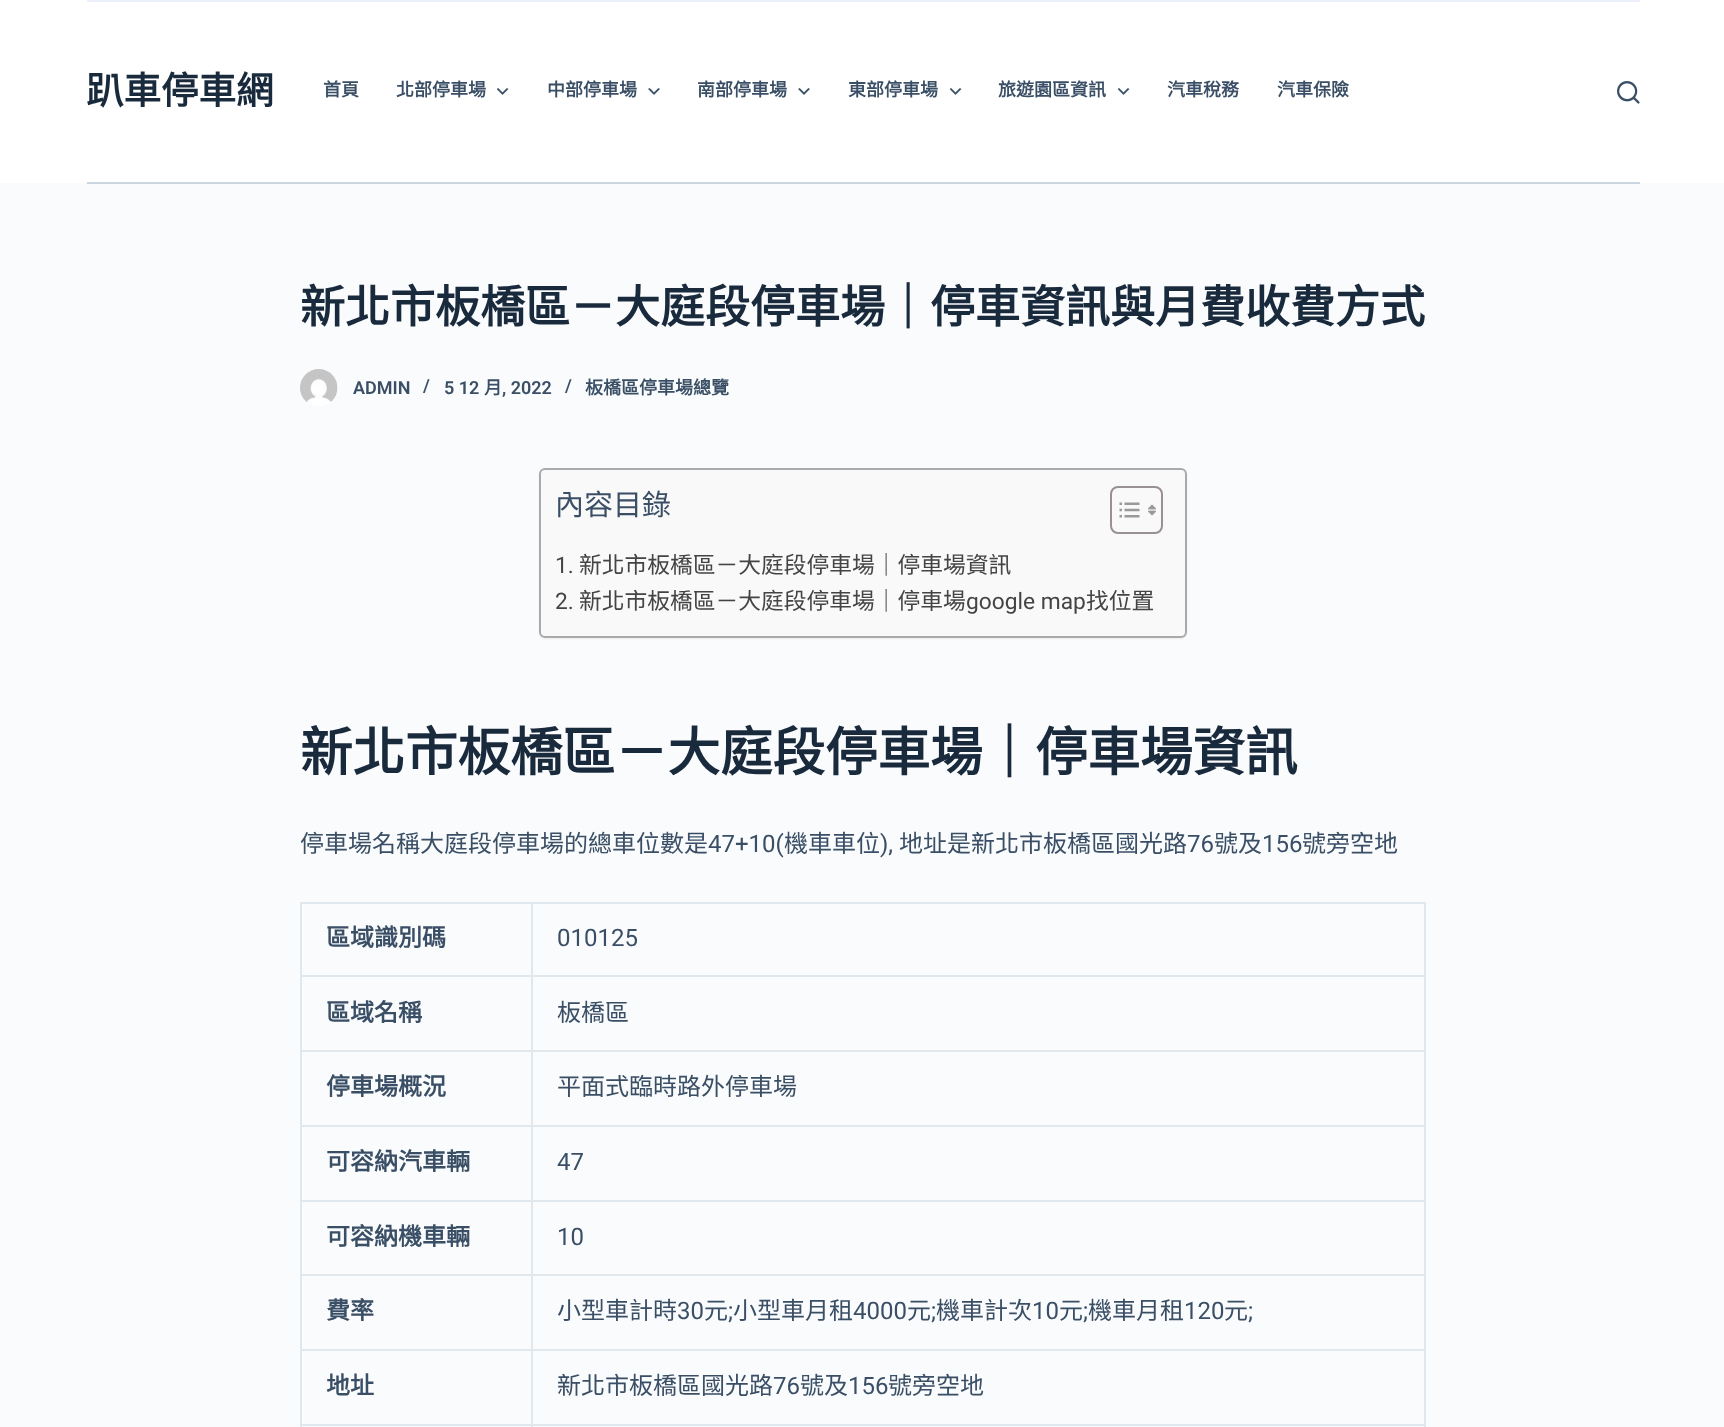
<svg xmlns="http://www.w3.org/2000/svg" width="1724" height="1427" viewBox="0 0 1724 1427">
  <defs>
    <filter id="blur1" x="-50%" y="-200%" width="200%" height="500%"><feGaussianBlur stdDeviation="1"/></filter>
  </defs>
  <rect width="100%" height="100%" fill="#fafbfc"/>
  <rect x="87" y="183" width="1553" height="1" fill="#c8d4df"/>
  <rect x="0" y="0" width="1724" height="183" fill="#ffffff"/>
  <rect x="87" y="182" width="1553" height="1" fill="#ccd7e2"/>
  <rect x="87" y="0" width="1553" height="2" fill="#eaeff9"/>
  <text x="86" y="104" font-family="Noto Sans CJK TC" font-size="37.5" font-weight="bold" fill="#192a3d">趴車停車網</text>
  <text x="323" y="96" font-family="Noto Sans CJK TC" font-size="18" font-weight="bold" fill="#3a4f66">首頁</text>
  <text x="396" y="96" font-family="Noto Sans CJK TC" font-size="18" font-weight="bold" fill="#3a4f66">北部停車場</text>
  <image x="497" y="88" width="12" height="7" href="img1.png"/>
  <text x="547" y="96" font-family="Noto Sans CJK TC" font-size="18" font-weight="bold" fill="#3a4f66">中部停車場</text>
  <image x="648" y="88" width="12" height="7" href="img2.png"/>
  <text x="697" y="96" font-family="Noto Sans CJK TC" font-size="18" font-weight="bold" fill="#3a4f66">南部停車場</text>
  <image x="798" y="88" width="12" height="7" href="img2.png"/>
  <text x="848" y="96" font-family="Noto Sans CJK TC" font-size="18" font-weight="bold" fill="#3a4f66">東部停車場</text>
  <image x="950" y="88" width="12" height="7" href="img1.png"/>
  <text x="998" y="96" font-family="Noto Sans CJK TC" font-size="18" font-weight="bold" fill="#3a4f66">旅遊園區資訊</text>
  <image x="1118" y="88" width="12" height="7" href="img1.png"/>
  <text x="1167" y="96" font-family="Noto Sans CJK TC" font-size="18" font-weight="bold" fill="#3a4f66">汽車稅務</text>
  <text x="1277" y="96" font-family="Noto Sans CJK TC" font-size="18" font-weight="bold" fill="#3a4f66">汽車保險</text>
  <image x="1617" y="81" width="23" height="23" href="img3.png"/>
  <text x="300" y="323" font-family="Noto Sans CJK TC" font-size="45" font-weight="bold" fill="#192a3d">新北市板橋區－大庭段停車場｜停車資訊與月費收費方式</text>
  <image x="300" y="369" width="38" height="37" href="img4.png"/>
  <text x="353" y="394" font-family="Roboto" font-size="18" font-weight="600" fill="#3a4f66">ADMIN</text>
  <text x="423" y="392" font-family="Roboto" font-size="18" font-weight="600" fill="#3a4f66">/</text>
  <text x="444" y="394" font-family="Roboto" font-size="18" font-weight="600" fill="#3a4f66">5 12</text>
  <text x="484" y="394" font-family="Noto Sans CJK TC" font-size="18" font-weight="bold" fill="#3a4f66">月</text>
  <text x="502" y="394" font-family="Roboto" font-size="18" font-weight="600" fill="#3a4f66">, 2022</text>
  <text x="565" y="392" font-family="Roboto" font-size="18" font-weight="600" fill="#3a4f66">/</text>
  <text x="585" y="394" font-family="Noto Sans CJK TC" font-size="18" font-weight="bold" fill="#3a4f66">板橋區停車場總覽</text>
  <rect x="539" y="470" width="648" height="169" rx="6" fill="#000000" fill-opacity="0.05" filter="url(#blur1)"/>
  <rect x="540" y="469" width="646" height="168" rx="5" fill="#f9f9f9" stroke="#aaaaaa" stroke-width="2"/>
  <text x="555" y="515" font-family="Noto Sans CJK TC" font-size="29" fill="#3a4f66">內容目錄</text>
  <rect x="1111" y="487" width="51" height="46" rx="7" fill="none" stroke="#999191" stroke-width="2"/>
  <image x="1119" y="502" width="21" height="16" href="img5.png"/>
  <image x="1148" y="504" width="8" height="12" href="img6.png"/>
  <text x="555" y="573" font-family="Roboto" font-size="22.75" fill="#444444">1.</text>
  <text x="579" y="573" font-family="Noto Sans CJK TC" font-size="22.75" fill="#444444">新北市板橋區－大庭段停車場｜停車場資訊</text>
  <text x="555" y="609" font-family="Roboto" font-size="22.75" fill="#444444">2.</text>
  <text x="579" y="609" font-family="Noto Sans CJK TC" font-size="22.75" fill="#444444">新北市板橋區－大庭段停車場｜停車場</text>
  <text x="966" y="609" font-family="Roboto" font-size="22.75" fill="#444444">google map</text>
  <text x="1086" y="609" font-family="Noto Sans CJK TC" font-size="22.75" fill="#444444">找位置</text>
  <text x="300" y="771" font-family="Noto Sans CJK TC" font-size="52.5" font-weight="bold" fill="#192a3d">新北市板橋區－大庭段停車場｜停車場資訊</text>
  <text x="300" y="852" font-family="Noto Sans CJK TC" font-size="24" fill="#3a4f66">停車場名稱大庭段停車場的總車位數是</text>
  <text x="708" y="852" font-family="Roboto" font-size="24" fill="#3a4f66">47+10(</text>
  <text x="784" y="852" font-family="Noto Sans CJK TC" font-size="24" fill="#3a4f66">機車車位</text>
  <text x="880" y="852" font-family="Roboto" font-size="24" fill="#3a4f66">),</text>
  <text x="899" y="852" font-family="Noto Sans CJK TC" font-size="24" fill="#3a4f66">地址是新北市板橋區國光路</text>
  <text x="1187" y="852" font-family="Roboto" font-size="24" fill="#3a4f66">76</text>
  <text x="1214" y="852" font-family="Noto Sans CJK TC" font-size="24" fill="#3a4f66">號及</text>
  <text x="1262" y="852" font-family="Roboto" font-size="24" fill="#3a4f66">156</text>
  <text x="1302" y="852" font-family="Noto Sans CJK TC" font-size="24" fill="#3a4f66">號旁空地</text>
  <rect x="300" y="902" width="1125" height="2" fill="#e1e8ed"/>
  <rect x="1424" y="902" width="2" height="525" fill="#e1e8ed"/>
  <rect x="300" y="902" width="2" height="525" fill="#e1e8ed"/>
  <text x="326" y="946" font-family="Noto Sans CJK TC" font-size="24" font-weight="bold" fill="#3a4f66">區域識別碼</text>
  <rect x="531" y="975" width="894" height="2" fill="#e1e8ed"/>
  <rect x="531" y="1050" width="894" height="2" fill="#e1e8ed"/>
  <rect x="531" y="1125" width="894" height="2" fill="#e1e8ed"/>
  <rect x="531" y="1200" width="894" height="2" fill="#e1e8ed"/>
  <rect x="531" y="1274" width="894" height="2" fill="#e1e8ed"/>
  <rect x="531" y="1349" width="894" height="2" fill="#e1e8ed"/>
  <rect x="531" y="1424" width="894" height="2" fill="#e1e8ed"/>
  <rect x="531" y="1424" width="2" height="3" fill="#e1e8ed"/>
  <rect x="300" y="1424" width="233" height="2" fill="#e1e8ed"/>
  <rect x="531" y="1349" width="2" height="76" fill="#e1e8ed"/>
  <rect x="300" y="1349" width="233" height="2" fill="#e1e8ed"/>
  <rect x="531" y="1274" width="2" height="76" fill="#e1e8ed"/>
  <rect x="300" y="1274" width="233" height="2" fill="#e1e8ed"/>
  <rect x="531" y="1200" width="2" height="75" fill="#e1e8ed"/>
  <rect x="300" y="1200" width="233" height="2" fill="#e1e8ed"/>
  <rect x="531" y="1125" width="2" height="77" fill="#e1e8ed"/>
  <rect x="300" y="1125" width="233" height="2" fill="#e1e8ed"/>
  <rect x="531" y="1050" width="2" height="77" fill="#e1e8ed"/>
  <rect x="300" y="1050" width="233" height="2" fill="#e1e8ed"/>
  <rect x="531" y="975" width="2" height="77" fill="#e1e8ed"/>
  <rect x="300" y="975" width="233" height="2" fill="#e1e8ed"/>
  <rect x="531" y="902" width="2" height="75" fill="#e1e8ed"/>
  <text x="557" y="946" font-family="Roboto" font-size="24" fill="#3a4f66">010125</text>
  <text x="326" y="1021" font-family="Noto Sans CJK TC" font-size="24" font-weight="bold" fill="#3a4f66">區域名稱</text>
  <text x="557" y="1021" font-family="Noto Sans CJK TC" font-size="24" fill="#3a4f66">板橋區</text>
  <text x="326" y="1095" font-family="Noto Sans CJK TC" font-size="24" font-weight="bold" fill="#3a4f66">停車場概況</text>
  <text x="557" y="1095" font-family="Noto Sans CJK TC" font-size="24" fill="#3a4f66">平面式臨時路外停車場</text>
  <text x="326" y="1170" font-family="Noto Sans CJK TC" font-size="24" font-weight="bold" fill="#3a4f66">可容納汽車輛</text>
  <text x="557" y="1170" font-family="Roboto" font-size="24" fill="#3a4f66">47</text>
  <text x="326" y="1245" font-family="Noto Sans CJK TC" font-size="24" font-weight="bold" fill="#3a4f66">可容納機車輛</text>
  <text x="557" y="1245" font-family="Roboto" font-size="24" fill="#3a4f66">10</text>
  <text x="326" y="1319" font-family="Noto Sans CJK TC" font-size="24" font-weight="bold" fill="#3a4f66">費率</text>
  <text x="557" y="1319" font-family="Noto Sans CJK TC" font-size="24" fill="#3a4f66">小型車計時</text>
  <text x="677" y="1319" font-family="Roboto" font-size="24" fill="#3a4f66">30</text>
  <text x="704" y="1319" font-family="Noto Sans CJK TC" font-size="24" fill="#3a4f66">元</text>
  <text x="728" y="1319" font-family="Roboto" font-size="24" fill="#3a4f66">;</text>
  <text x="733" y="1319" font-family="Noto Sans CJK TC" font-size="24" fill="#3a4f66">小型車月租</text>
  <text x="853" y="1319" font-family="Roboto" font-size="24" fill="#3a4f66">4000</text>
  <text x="907" y="1319" font-family="Noto Sans CJK TC" font-size="24" fill="#3a4f66">元</text>
  <text x="931" y="1319" font-family="Roboto" font-size="24" fill="#3a4f66">;</text>
  <text x="936" y="1319" font-family="Noto Sans CJK TC" font-size="24" fill="#3a4f66">機車計次</text>
  <text x="1032" y="1319" font-family="Roboto" font-size="24" fill="#3a4f66">10</text>
  <text x="1059" y="1319" font-family="Noto Sans CJK TC" font-size="24" fill="#3a4f66">元</text>
  <text x="1083" y="1319" font-family="Roboto" font-size="24" fill="#3a4f66">;</text>
  <text x="1088" y="1319" font-family="Noto Sans CJK TC" font-size="24" fill="#3a4f66">機車月租</text>
  <text x="1184" y="1319" font-family="Roboto" font-size="24" fill="#3a4f66">120</text>
  <text x="1224" y="1319" font-family="Noto Sans CJK TC" font-size="24" fill="#3a4f66">元</text>
  <text x="1248" y="1319" font-family="Roboto" font-size="24" fill="#3a4f66">;</text>
  <text x="326" y="1394" font-family="Noto Sans CJK TC" font-size="24" font-weight="bold" fill="#3a4f66">地址</text>
  <text x="557" y="1394" font-family="Noto Sans CJK TC" font-size="24" fill="#3a4f66">新北市板橋區國光路</text>
  <text x="773" y="1394" font-family="Roboto" font-size="24" fill="#3a4f66">76</text>
  <text x="800" y="1394" font-family="Noto Sans CJK TC" font-size="24" fill="#3a4f66">號及</text>
  <text x="848" y="1394" font-family="Roboto" font-size="24" fill="#3a4f66">156</text>
  <text x="888" y="1394" font-family="Noto Sans CJK TC" font-size="24" fill="#3a4f66">號旁空地</text>
</svg>
